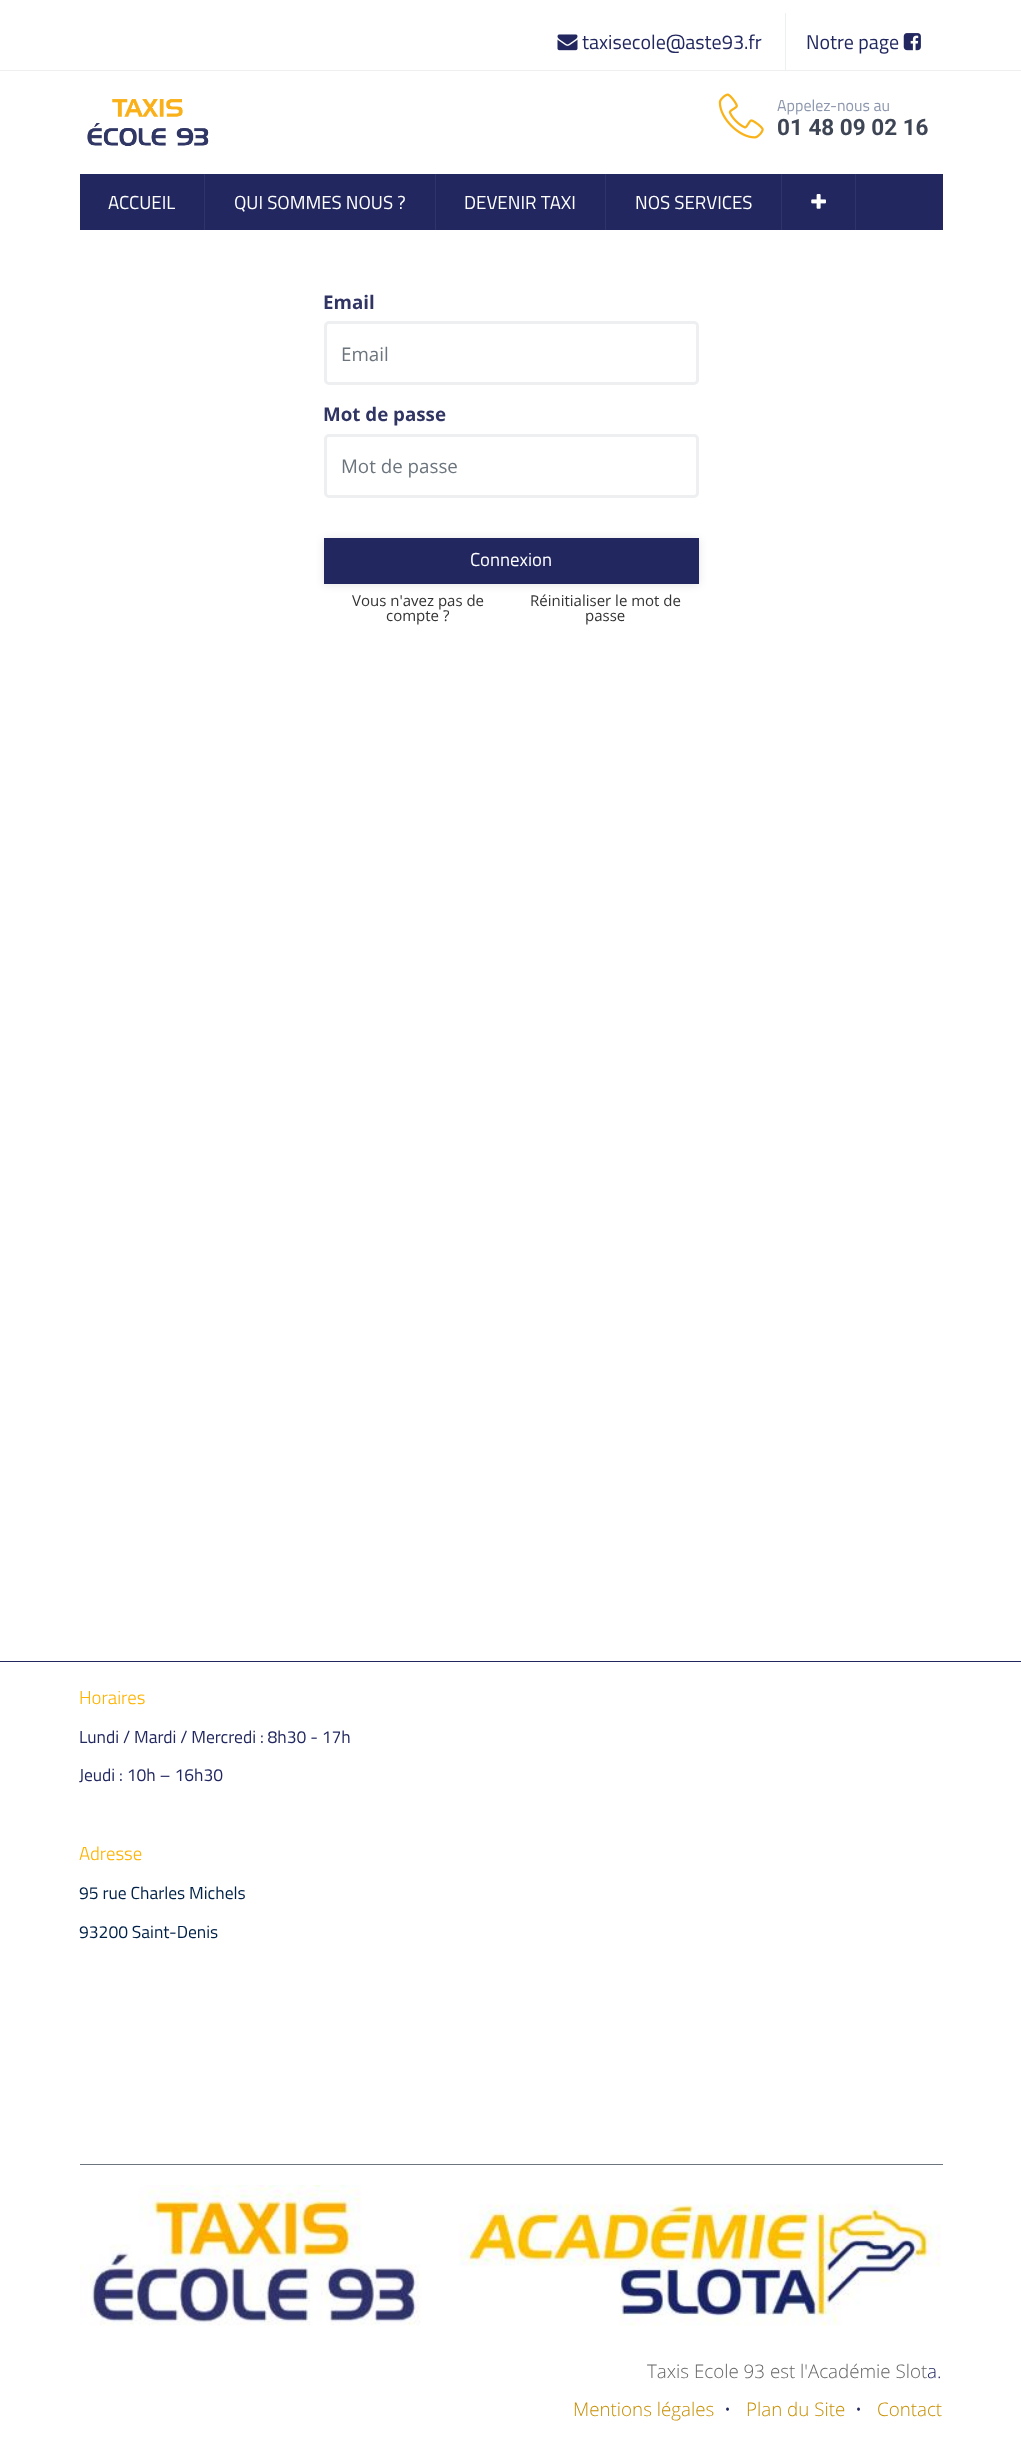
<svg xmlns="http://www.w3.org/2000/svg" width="1021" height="2438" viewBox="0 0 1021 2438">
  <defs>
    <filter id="blur1" x="-50%" y="-200%" width="200%" height="500%"><feGaussianBlur stdDeviation="4"/></filter>
  </defs>
  <rect width="100%" height="100%" fill="#ffffff"/>
  <rect x="0" y="70" width="1021" height="1" fill="#edeff0"/>
  <rect x="785" y="13" width="1" height="57" fill="#edeff0"/>
  <image x="557" y="34" width="21" height="17" href="img1.png"/>
  <text x="582" y="49" font-family="Titillium Web" font-size="20" fill="#22285f">taxisecole@aste93.fr</text>
  <text x="806" y="49" font-family="Titillium Web" font-size="20" fill="#22285f">Notre page</text>
  <image x="903" y="33" width="18" height="18" href="img2.png"/>
  <image x="87" y="99" width="122" height="47" href="img3.png"/>
  <image x="718" y="93" width="46" height="46" href="img4.png"/>
  <text x="777" y="111" font-family="Titillium Web" font-size="16" fill="#8d97ad">Appelez-nous au</text>
  <text x="777" y="135" font-family="Roboto" font-size="22.5" font-weight="bold" fill="#3e4555">01 48 09 02 16</text>
  <rect x="80" y="174" width="863" height="56" fill="#22285f"/>
  <rect x="204" y="174" width="1" height="56" fill="#2f3569"/>
  <text x="108" y="209" font-family="Titillium Web" font-size="18.75" fill="#ffffff">ACCUEIL</text>
  <rect x="435" y="174" width="1" height="56" fill="#2f3569"/>
  <text x="234" y="209" font-family="Titillium Web" font-size="18.75" fill="#ffffff">QUI SOMMES NOUS ?</text>
  <rect x="605" y="174" width="1" height="56" fill="#2f3569"/>
  <text x="464" y="209" font-family="Titillium Web" font-size="18.75" fill="#ffffff">DEVENIR TAXI</text>
  <rect x="781" y="174" width="1" height="56" fill="#2f3569"/>
  <text x="635" y="209" font-family="Titillium Web" font-size="18.75" fill="#ffffff">NOS SERVICES</text>
  <rect x="855" y="174" width="1" height="56" fill="#2f3569"/>
  <image x="811" y="194" width="15" height="15" href="img5.png"/>
  <text x="323" y="309" font-family="Open Sans" font-size="18.75" font-weight="bold" fill="#313563">Email</text>
  <rect x="325.5" y="322.5" width="372" height="61" rx="3.5" fill="none" stroke="#edeff0" stroke-width="3"/>
  <text x="341" y="361" font-family="Open Sans" font-size="18.75" fill="#6c757d">Email</text>
  <text x="323" y="421" font-family="Open Sans" font-size="18.75" font-weight="bold" fill="#313563">Mot de passe</text>
  <rect x="325.5" y="435.5" width="372" height="61" rx="3.5" fill="none" stroke="#edeff0" stroke-width="3"/>
  <text x="341" y="473" font-family="Open Sans" font-size="18.75" fill="#6c757d">Mot de passe</text>
  <rect x="324" y="539" width="375" height="46" fill="#000000" fill-opacity="0.1" filter="url(#blur1)"/>
  <rect x="324" y="538" width="375" height="46" fill="#22285f"/>
  <text x="470" y="566" font-family="Titillium Web" font-size="18.75" fill="#ffffff">Connexion</text>
  <text x="352" y="606" font-family="Open Sans" font-size="15" fill="#333333">Vous n'avez pas de</text>
  <text x="386" y="621" font-family="Open Sans" font-size="15" fill="#333333">compte ?</text>
  <text x="530" y="606" font-family="Open Sans" font-size="15" fill="#333333">Réinitialiser le mot de</text>
  <text x="585" y="621" font-family="Open Sans" font-size="15" fill="#333333">passe</text>
  <rect x="0" y="1661" width="1021" height="1" fill="#22285f"/>
  <text x="79" y="1704" font-family="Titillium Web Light" font-size="18.75" font-weight="300" fill="#ffb200">Horaires</text>
  <text x="79" y="1743" font-family="Titillium Web" font-size="17.5" fill="#22285f">Lundi / Mardi / Mercredi : 8h30 - 17h</text>
  <text x="79" y="1781" font-family="Titillium Web" font-size="17.5" fill="#22285f">Jeudi : 10h – 16h30</text>
  <text x="79" y="1860" font-family="Titillium Web Light" font-size="18.75" font-weight="300" fill="#ffb200">Adresse</text>
  <text x="79" y="1899" font-family="Titillium Web" font-size="17.5" fill="#002147">95 rue Charles Michels</text>
  <text x="79" y="1938" font-family="Titillium Web" font-size="17.5" fill="#002147">93200 Saint-Denis</text>
  <rect x="80" y="2164" width="863" height="1" fill="#6c757d"/>
  <image x="80" y="2185" width="861" height="141" href="img6.png"/>
  <text x="647" y="2378" font-family="Open Sans" font-size="18.75" font-weight="300" fill="#666666">Taxis Ecole 93 est l'Académie Slot</text>
  <text x="927" y="2378" font-family="Open Sans" font-size="18.75" font-weight="300" fill="#22285f">a.</text>
  <text x="573" y="2416" font-family="Open Sans" font-size="18.75" font-weight="300" fill="#c78e02">Mentions légales</text>
  <text x="724" y="2416" font-family="Open Sans" font-size="18.75" font-weight="300" fill="#22285f">•</text>
  <text x="746" y="2416" font-family="Open Sans" font-size="18.75" font-weight="300" fill="#c78e02">Plan du Site</text>
  <text x="855" y="2416" font-family="Open Sans" font-size="18.75" font-weight="300" fill="#22285f">•</text>
  <text x="877" y="2416" font-family="Open Sans" font-size="18.75" font-weight="300" fill="#c78e02">Contact</text>
</svg>
